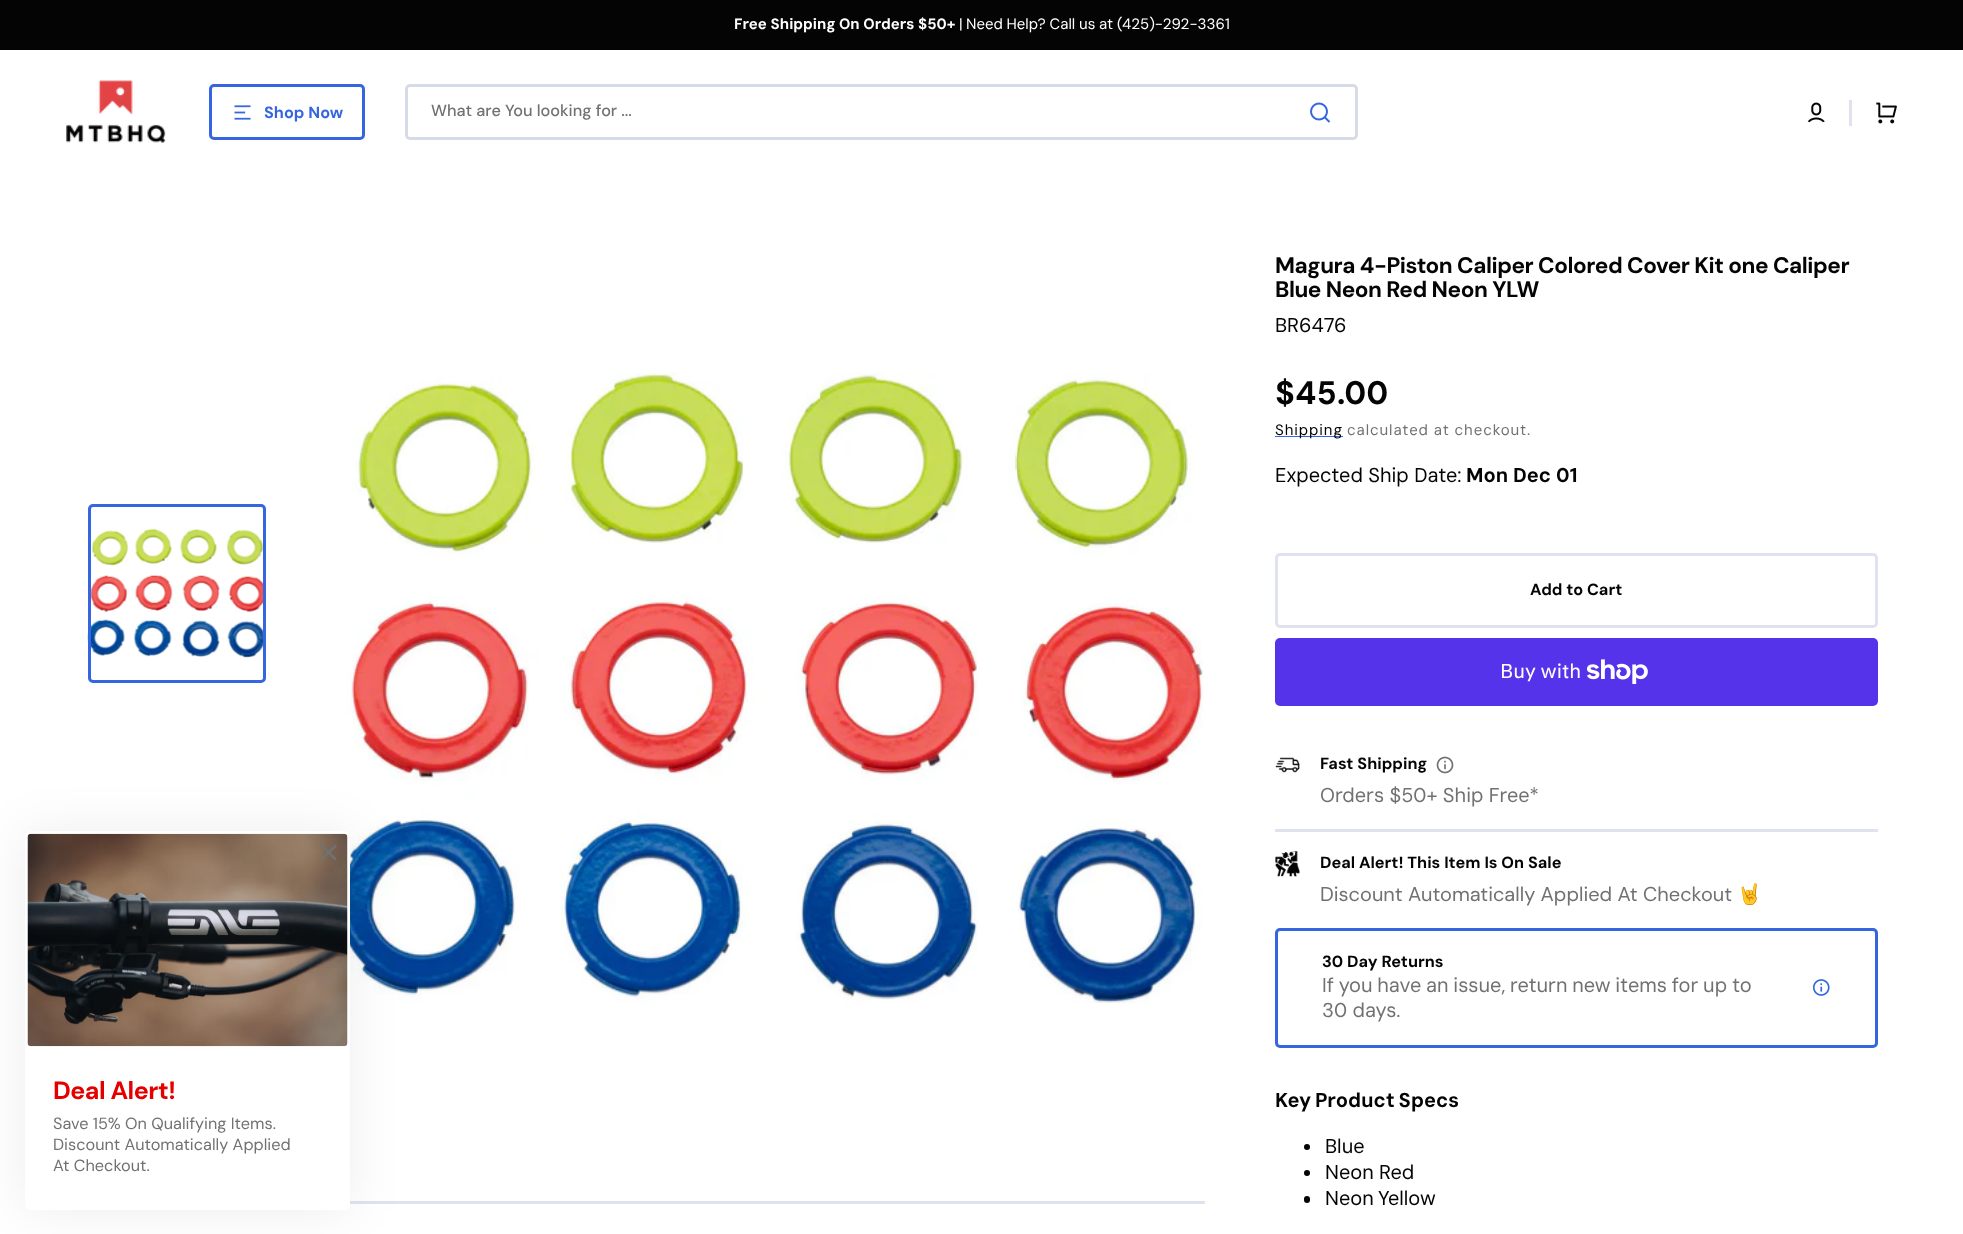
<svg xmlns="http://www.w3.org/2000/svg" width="1963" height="1234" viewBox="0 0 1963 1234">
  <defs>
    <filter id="blur1" x="-50%" y="-200%" width="200%" height="500%"><feGaussianBlur stdDeviation="25"/></filter>
  </defs>
  <rect width="100%" height="100%" fill="#ffffff"/>
  <rect x="0" y="0" width="1963" height="50" fill="#040404"/>
  <text x="734" y="29" font-family="'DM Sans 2'" font-size="15" font-weight="bold" fill="#ffffff">Free Shipping On Orders $50+</text>
  <text x="959" y="29" font-family="DM Sans" font-size="15" fill="#ffffff">|</text>
  <text x="966" y="29" word-spacing="-0.25" font-family="DM Sans" font-size="15" fill="#ffffff">Need Help? Call us at (425)-292-3361</text>
  <image x="66" y="80" width="100" height="63" href="img1.png"/>
  <rect x="210.5" y="85.5" width="153" height="53" rx="3.5" fill="none" stroke="#3565e0" stroke-width="3"/>
  <image x="234" y="105" width="17" height="15" href="img2.png"/>
  <text x="264" y="118" font-family="'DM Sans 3'" font-size="16.25" font-weight="bold" fill="#3565e0">Shop Now</text>
  <rect x="406.5" y="85.5" width="950" height="53" rx="3.5" fill="none" stroke="#d5dce7" stroke-width="3"/>
  <text x="431" y="116" font-family="DM Sans" font-size="16.25" font-weight="500" fill="#717171">What are You looking for ...</text>
  <image x="1310" y="102" width="21" height="21" href="img3.png"/>
  <image x="1807" y="102" width="18" height="21" href="img4.png"/>
  <rect x="1849" y="100" width="3" height="26" fill="#e0e3ee"/>
  <image x="1876" y="102" width="21" height="22" href="img5.png"/>
  <image x="336" y="372" width="867" height="632" href="img9.png"/>
  <rect x="350" y="1201" width="855" height="3" fill="#e0e3ee"/>
  <rect x="25" y="831" width="325" height="379" fill="#000000" fill-opacity="0.07" filter="url(#blur1)"/>
  <rect x="25" y="831" width="325" height="379" rx="6" fill="#ffffff"/>
  <image x="27" y="833" width="321" height="214" href="img6.png"/>
  <image x="321" y="844" width="16" height="17" href="img7.png"/>
  <text x="53" y="1099" font-family="'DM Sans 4'" font-size="25" font-weight="bold" letter-spacing="-0.5" fill="#e50000">Deal Alert!</text>
  <text x="53" y="1129" font-family="'DM Sans 3'" font-size="16.25" fill="#717171">Save 15% On Qualifying Items.</text>
  <text x="53" y="1150" font-family="'DM Sans 3'" font-size="16.25" fill="#717171">Discount Automatically Applied</text>
  <text x="53" y="1171" font-family="'DM Sans 3'" font-size="16.25" fill="#717171">At Checkout.</text>
  <image x="87" y="528" width="176" height="130" href="img8.png"/>
  <rect x="89.5" y="505.5" width="175" height="176" rx="3.5" fill="none" stroke="#3565e0" stroke-width="3"/>
  <text x="1275" y="273" font-family="DM Sans" font-size="22.5" font-weight="bold" letter-spacing="-0.45" fill="#040404">Magura 4-Piston Caliper Colored Cover Kit one Caliper</text>
  <text x="1275" y="297" font-family="DM Sans" font-size="22.5" font-weight="bold" letter-spacing="-0.45" fill="#040404">Blue Neon Red Neon YLW</text>
  <text x="1275" y="332" font-family="DM Sans" font-size="20" fill="#040404">BR6476</text>
  <text x="1275" y="404" font-family="'DM Sans 2'" font-size="32.5" font-weight="bold" fill="#040404">$45.00</text>
  <rect x="1275" y="436" width="68" height="1" fill="#3565e0"/>
  <text x="1275" y="435" font-family="DM Sans" font-size="15" letter-spacing="0.9" fill="#040404">Shipping</text>
  <text x="1347" y="435" font-family="DM Sans" font-size="15" letter-spacing="0.9" fill="#717171">calculated at checkout.</text>
  <text x="1275" y="482" font-family="DM Sans" font-size="20" fill="#040404">Expected Ship Date:</text>
  <text x="1466" y="482" font-family="'DM Sans 2'" font-size="20" font-weight="bold" fill="#040404">Mon Dec 01</text>
  <rect x="1276.5" y="554.5" width="600" height="72" rx="3.5" fill="none" stroke="#e0e3ee" stroke-width="3"/>
  <text x="1530" y="595" font-family="'DM Sans 3'" font-size="16.25" font-weight="bold" fill="#040404">Add to Cart</text>
  <rect x="1275" y="638" width="603" height="68" rx="5" fill="#5433eb"/>
  <text x="1500" y="678" font-family="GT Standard" font-size="20" fill="#ffffff">Buy with</text>
  <image x="1586" y="659" width="62" height="25" href="img10.png"/>
  <image x="1275" y="757" width="25" height="16" href="img11.png"/>
  <text x="1320" y="769" font-family="'DM Sans 3'" font-size="16.25" font-weight="bold" fill="#040404">Fast Shipping</text>
  <image x="1436" y="756" width="18" height="18" href="img12.png"/>
  <text x="1320" y="802" font-family="DM Sans" font-size="20" fill="#717171">Orders $50+ Ship Free*</text>
  <rect x="1275" y="829" width="603" height="3" fill="#e0e3ee"/>
  <image x="1275" y="851" width="25" height="26" href="img13.png"/>
  <text x="1320" y="868" font-family="'DM Sans 3'" font-size="16.25" font-weight="bold" fill="#040404">Deal Alert! This Item Is On Sale</text>
  <text x="1320" y="901" font-family="'DM Sans 2'" font-size="20" fill="#717171">Discount Automatically Applied At Checkout</text>
  <text x="1737" y="901" font-family="Noto Color Emoji" font-size="20" fill="#717171">🤘</text>
  <rect x="1276.5" y="929.5" width="600" height="117" rx="3.5" fill="none" stroke="#3565e0" stroke-width="3"/>
  <text x="1322" y="967" font-family="'DM Sans 3'" font-size="16.25" font-weight="bold" fill="#040404">30 Day Returns</text>
  <text x="1322" y="992" word-spacing="-0.6" font-family="DM Sans" font-size="20" fill="#717171">If you have an issue, return new items for up to</text>
  <text x="1322" y="1017" font-family="DM Sans" font-size="20" fill="#717171">30 days.</text>
  <image x="1813" y="979" width="17" height="17" href="img14.png"/>
  <text x="1275" y="1107" word-spacing="-1" font-family="'DM Sans 2'" font-size="20" font-weight="bold" fill="#040404">Key Product Specs</text>
  <circle cx="1307" cy="1147" r="3" fill="#040404"/>
  <text x="1325" y="1153" font-family="DM Sans" font-size="20" fill="#040404">Blue</text>
  <circle cx="1307" cy="1173" r="3" fill="#040404"/>
  <text x="1325" y="1179" font-family="DM Sans" font-size="20" fill="#040404">Neon Red</text>
  <rect x="1304" y="1196" width="6" height="7" rx="3" fill="#040404"/>
  <text x="1325" y="1205" word-spacing="-1" font-family="DM Sans" font-size="20" fill="#040404">Neon Yellow</text>
</svg>
